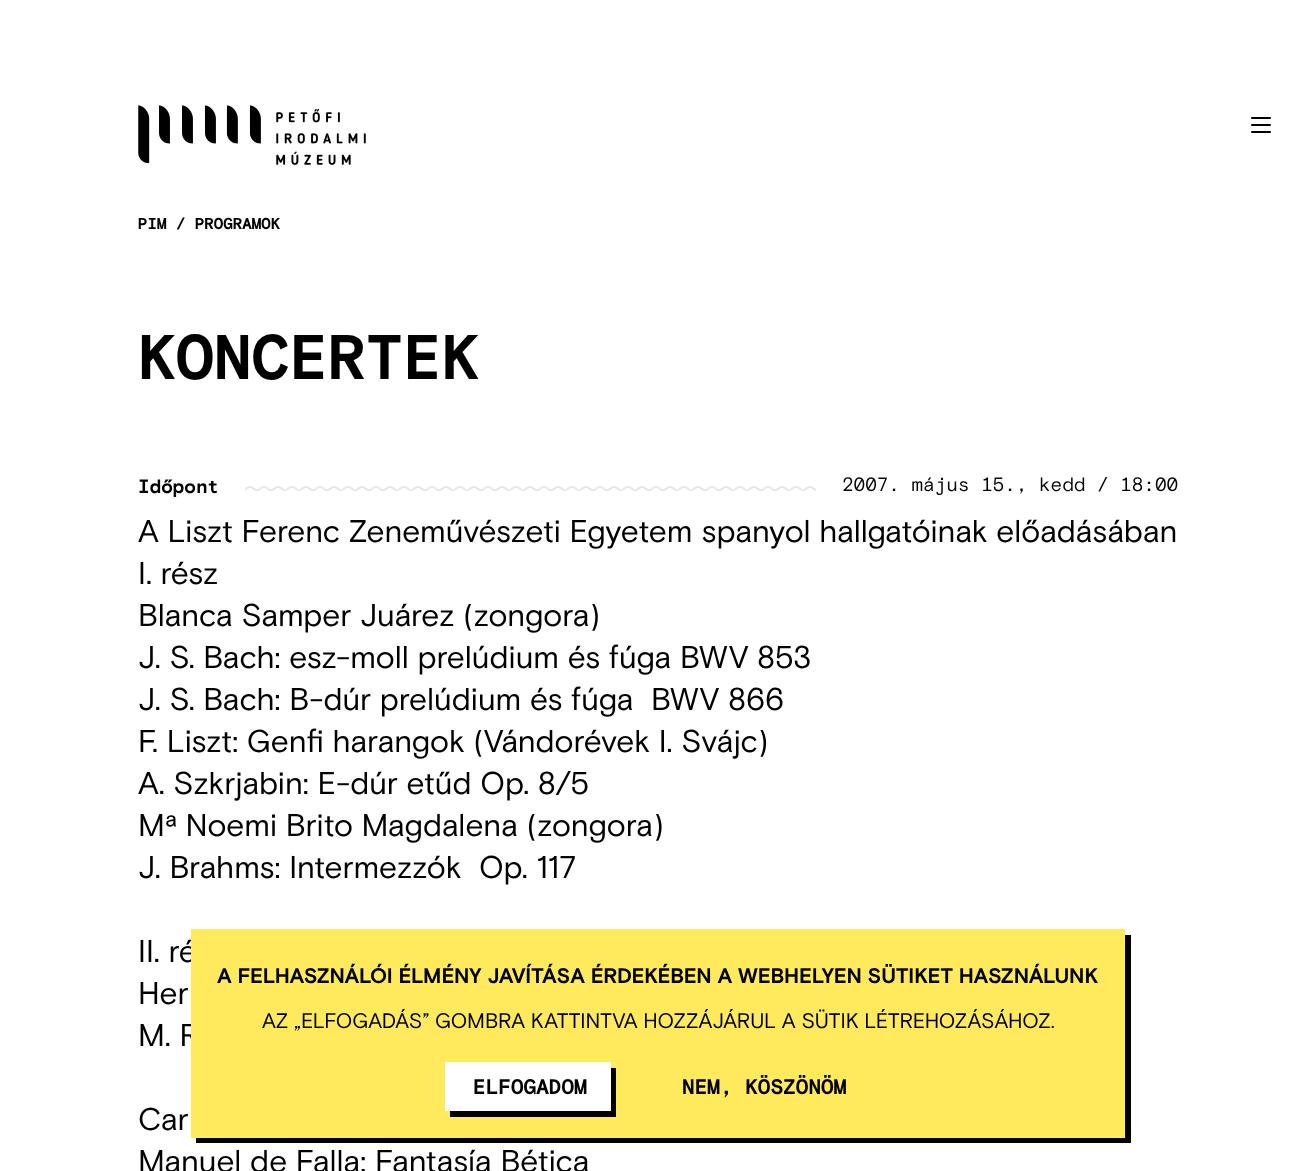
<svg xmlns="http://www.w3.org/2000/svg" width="1316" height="1171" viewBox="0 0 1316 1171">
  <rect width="100%" height="100%" fill="#ffffff"/>
  <image x="138" y="105" width="228" height="60" href="img1.png"/>
  <rect x="1251" y="117" width="20" height="2" rx="1" fill="#000000"/>
  <rect x="1251" y="124" width="20" height="2" rx="1" fill="#000000"/>
  <rect x="1251" y="131" width="20" height="2" rx="1" fill="#000000"/>
  <text x="138" y="229" font-family="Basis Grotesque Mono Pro" font-size="15.75" font-weight="bold" fill="#000000">PIM / PROGRAMOK</text>
  <text x="138" y="379" font-family="Basis Grotesque Mono Pro" font-size="63" font-weight="bold" fill="#000000">KONCERTEK</text>
  <text x="138" y="493" font-family="Basis Grotesque Mono Pro" font-size="19.25" font-weight="bold" fill="#000000">Időpont</text>
  <image x="245" y="486" width="571" height="5" href="img2.png"/>
  <text x="842" y="491" font-family="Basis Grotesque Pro" font-size="19.25" font-weight="100" fill="#000000">2007. május 15., kedd / 18:00</text>
  <text x="138" y="542" font-family="Basis Grotesque Pro" font-size="31.5" fill="#000000">A Liszt Ferenc Zeneművészeti Egyetem spanyol hallgatóinak előadásában</text>
  <text x="138" y="584" font-family="Basis Grotesque Pro" font-size="31.5" fill="#000000">I. rész</text>
  <text x="138" y="626" font-family="Basis Grotesque Pro" font-size="31.5" fill="#000000">Blanca Samper Juárez (zongora)</text>
  <text x="138" y="668" font-family="Basis Grotesque Pro" font-size="31.5" fill="#000000">J. S. Bach: esz-moll prelúdium és fúga BWV 853</text>
  <text x="138" y="710" font-family="Basis Grotesque Pro" font-size="31.5" fill="#000000" xml:space="preserve">J. S. Bach: B-dúr prelúdium és fúga  BWV 866</text>
  <text x="138" y="752" font-family="Basis Grotesque Pro" font-size="31.5" fill="#000000">F. Liszt: Genfi harangok (Vándorévek I. Svájc)</text>
  <text x="138" y="794" font-family="Basis Grotesque Pro" font-size="31.5" fill="#000000">A. Szkrjabin: E-dúr etűd Op. 8/5</text>
  <text x="138" y="836" font-family="Basis Grotesque Pro" font-size="31.5" fill="#000000">Mª Noemi Brito Magdalena (zongora)</text>
  <text x="138" y="878" font-family="Basis Grotesque Pro" font-size="31.5" fill="#000000" xml:space="preserve">J. Brahms: Intermezzók  Op. 117</text>
  <text x="138" y="962" font-family="Basis Grotesque Pro" font-size="31.5" fill="#000000">II. ré</text>
  <text x="138" y="1004" font-family="Basis Grotesque Pro" font-size="31.5" fill="#000000">Her</text>
  <text x="138" y="1046" font-family="Basis Grotesque Pro" font-size="31.5" fill="#000000">M. R</text>
  <text x="138" y="1130" font-family="Basis Grotesque Pro" font-size="31.5" fill="#000000">Car</text>
  <text x="138" y="1172" font-family="Basis Grotesque Pro" font-size="31.5" fill="#000000">Manuel de Falla: Fantasía Bética</text>
  <path d="M196 1138V1143H1131V935H1125V1138Z" fill="#000000"/>
  <rect x="191" y="929" width="934" height="209" fill="#ffea5e"/>
  <text x="217" y="983" font-family="Basis Grotesque Pro" font-size="21" font-weight="bold" fill="#000000">A FELHASZNÁLÓI ÉLMÉNY JAVÍTÁSA ÉRDEKÉBEN A WEBHELYEN SÜTIKET HASZNÁLUNK</text>
  <text x="262" y="1028" font-family="Basis Grotesque Pro" font-size="21" fill="#000000">AZ „ELFOGADÁS” GOMBRA KATTINTVA HOZZÁJÁRUL A SÜTIK LÉTREHOZÁSÁHOZ.</text>
  <path d="M450 1111V1117H616V1068H611V1111Z" fill="#000000"/>
  <rect x="445" y="1062" width="166" height="49" fill="#ffffff"/>
  <text x="473" y="1094" font-family="Basis Grotesque Mono Pro" font-size="21" font-weight="bold" fill="#000000">ELFOGADOM</text>
  <text x="682" y="1094" font-family="Basis Grotesque Mono Pro" font-size="21" font-weight="bold" fill="#000000">NEM, KÖSZÖNÖM</text>
</svg>
